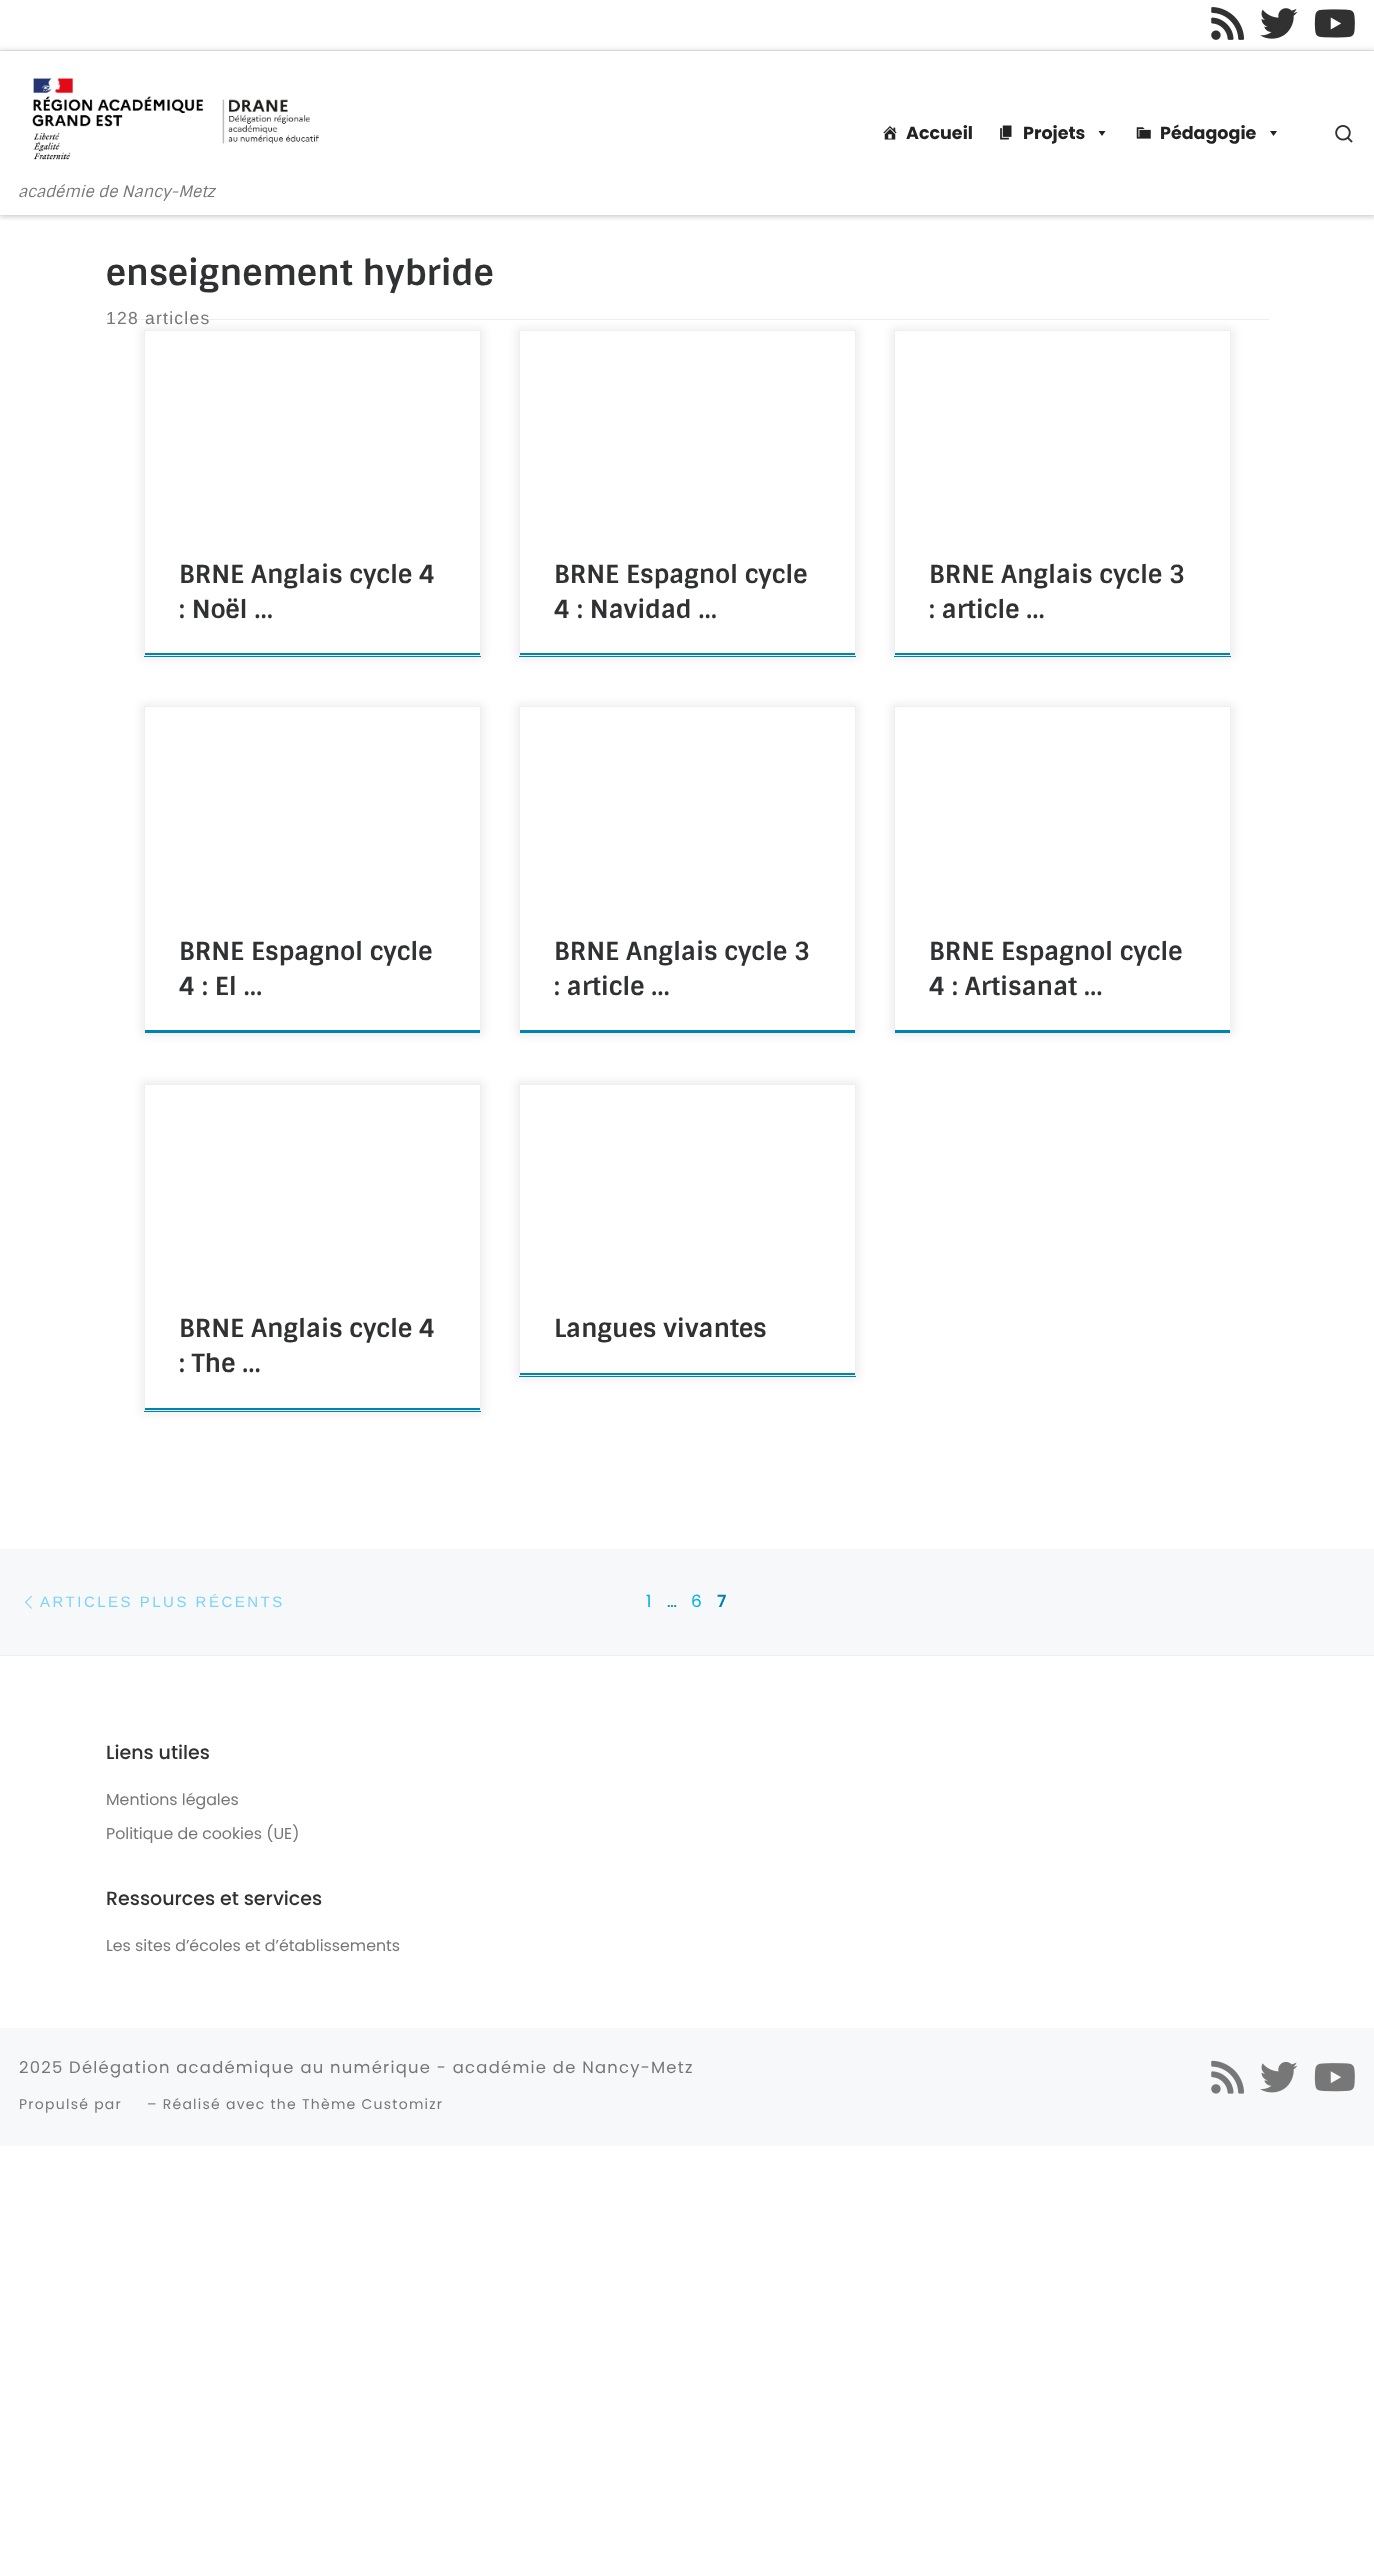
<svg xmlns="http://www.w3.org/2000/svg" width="1374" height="2570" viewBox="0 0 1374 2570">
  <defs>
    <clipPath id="clip1"><rect x="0" y="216" width="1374" height="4"/></clipPath>
    <filter id="blur1" x="-50%" y="-200%" width="200%" height="500%"><feGaussianBlur stdDeviation="1"/></filter>
    <filter id="blur2" x="-50%" y="-200%" width="200%" height="500%"><feGaussianBlur stdDeviation="3"/></filter>
    <clipPath id="clip2"><path d="M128 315H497V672H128ZM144 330H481V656H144Z" clip-rule="evenodd"/></clipPath>
    <filter id="blur3" x="-50%" y="-200%" width="200%" height="500%"><feGaussianBlur stdDeviation="4"/></filter>
    <clipPath id="clip3"><path d="M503 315H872V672H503ZM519 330H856V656H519Z" clip-rule="evenodd"/></clipPath>
    <clipPath id="clip4"><path d="M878 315H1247V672H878ZM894 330H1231V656H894Z" clip-rule="evenodd"/></clipPath>
    <clipPath id="clip5"><path d="M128 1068H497V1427H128ZM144 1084H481V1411H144Z" clip-rule="evenodd"/></clipPath>
    <clipPath id="clip6"><path d="M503 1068H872V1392H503ZM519 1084H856V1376H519Z" clip-rule="evenodd"/></clipPath>
  </defs>
  <rect width="100%" height="100%" fill="#ffffff"/>
  <g clip-path="url(#clip1)">
    <rect x="0" y="3" width="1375" height="216" fill="#666666" fill-opacity="0.08" filter="url(#blur1)"/>
  </g>
  <rect x="0" y="50" width="1374" height="1" fill="#ececec"/>
  <image x="1211" y="7" width="34" height="33" href="img1.png"/>
  <image x="1260" y="8" width="38" height="31" href="img2.png"/>
  <image x="1314" y="9" width="41" height="29" href="img3.png"/>
  <rect x="0" y="215" width="1374" height="1" fill="#efefef"/>
  <rect x="0" y="51" width="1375" height="164" fill="#000000" fill-opacity="0.2" filter="url(#blur2)"/>
  <rect x="0" y="51" width="1374" height="164" fill="#ffffff"/>
  <image x="883" y="126" width="14" height="14" href="img4.png"/>
  <text x="906" y="139" font-family="Poppins" font-size="17.5" font-weight="bold" fill="#222222">Accueil</text>
  <image x="1000" y="125" width="12" height="15" href="img5.png"/>
  <text x="1023" y="139" font-family="Poppins" font-size="17.5" font-weight="bold" fill="#222222">Projets</text>
  <path d="M1105.5 131L1102 136L1098.5 131Z" fill="#222222"/>
  <image x="1136" y="127" width="15" height="12" href="img6.png"/>
  <text x="1160" y="139" font-family="Poppins" font-size="17.5" font-weight="bold" fill="#222222">Pédagogie</text>
  <path d="M1277 131L1273.5 136L1270 131Z" fill="#222222"/>
  <image x="1335" y="125" width="18" height="18" href="img7.png"/>
  <image x="32" y="78" width="287" height="82" href="img8.png"/>
  <text x="18" y="197" font-family="Sintony" font-size="15.8" font-style="italic" fill="#777777">académie de Nancy-Metz</text>
  <text x="106" y="285" font-family="Sintony" font-size="35" font-weight="bold" fill="#303133">enseignement hybride</text>
  <rect x="106" y="319" width="1163" height="1" fill="#eceeef"/>
  <text x="106" y="324" font-family="Liberation Sans" font-size="17.5" letter-spacing="1.25" fill="#777777">128 articles</text>
  <g clip-path="url(#clip2)">
    <rect x="141" y="328" width="343" height="331" fill="#000000" fill-opacity="0.07" filter="url(#blur3)"/>
  </g>
  <rect x="144" y="653" width="337" height="4" fill="#0082b2"/>
  <rect x="144.5" y="330.5" width="336" height="325" fill="none" stroke="#efefef"/>
  <text x="179" y="583" font-family="Sintony" font-size="25" font-weight="bold" fill="#303133">BRNE Anglais cycle 4</text>
  <text x="179" y="618" font-family="Sintony" font-size="25" font-weight="bold" fill="#303133">: Noël …</text>
  <g clip-path="url(#clip3)">
    <rect x="516" y="328" width="343" height="331" fill="#000000" fill-opacity="0.07" filter="url(#blur3)"/>
  </g>
  <rect x="519" y="653" width="337" height="4" fill="#0082b2"/>
  <rect x="519.5" y="330.5" width="336" height="325" fill="none" stroke="#efefef"/>
  <text x="554" y="583" font-family="Sintony" font-size="25" font-weight="bold" fill="#303133">BRNE Espagnol cycle</text>
  <text x="554" y="618" font-family="Sintony" font-size="25" font-weight="bold" fill="#303133">4 : Navidad …</text>
  <g clip-path="url(#clip4)">
    <rect x="891" y="328" width="343" height="331" fill="#000000" fill-opacity="0.07" filter="url(#blur3)"/>
  </g>
  <rect x="894" y="653" width="337" height="4" fill="#0082b2"/>
  <rect x="894.5" y="330.5" width="336" height="325" fill="none" stroke="#efefef"/>
  <text x="929" y="583" font-family="Sintony" font-size="25" font-weight="bold" fill="#303133">BRNE Anglais cycle 3</text>
  <text x="929" y="618" font-family="Sintony" font-size="25" font-weight="bold" fill="#303133">: article …</text>
  <rect x="141" y="704" width="343" height="332" fill="#000000" fill-opacity="0.07" filter="url(#blur3)"/>
  <rect x="145" y="707" width="335" height="323" fill="#ffffff"/>
  <rect x="144" y="1030" width="337" height="3" fill="#0082b2"/>
  <rect x="144.5" y="706.5" width="336" height="327" fill="none" stroke="#efefef"/>
  <text x="179" y="960" font-family="Sintony" font-size="25" font-weight="bold" fill="#303133">BRNE Espagnol cycle</text>
  <text x="179" y="995" font-family="Sintony" font-size="25" font-weight="bold" fill="#303133">4 : El …</text>
  <rect x="516" y="704" width="343" height="332" fill="#000000" fill-opacity="0.07" filter="url(#blur3)"/>
  <rect x="520" y="707" width="335" height="323" fill="#ffffff"/>
  <rect x="519" y="1030" width="337" height="3" fill="#0082b2"/>
  <rect x="519.5" y="706.5" width="336" height="327" fill="none" stroke="#efefef"/>
  <text x="554" y="960" font-family="Sintony" font-size="25" font-weight="bold" fill="#303133">BRNE Anglais cycle 3</text>
  <text x="554" y="995" font-family="Sintony" font-size="25" font-weight="bold" fill="#303133">: article …</text>
  <rect x="891" y="704" width="343" height="332" fill="#000000" fill-opacity="0.07" filter="url(#blur3)"/>
  <rect x="895" y="707" width="335" height="323" fill="#ffffff"/>
  <rect x="894" y="1030" width="337" height="3" fill="#0082b2"/>
  <rect x="894.5" y="706.5" width="336" height="327" fill="none" stroke="#efefef"/>
  <text x="929" y="960" font-family="Sintony" font-size="25" font-weight="bold" fill="#303133">BRNE Espagnol cycle</text>
  <text x="929" y="995" font-family="Sintony" font-size="25" font-weight="bold" fill="#303133">4 : Artisanat …</text>
  <g clip-path="url(#clip5)">
    <rect x="141" y="1081" width="343" height="333" fill="#000000" fill-opacity="0.07" filter="url(#blur3)"/>
  </g>
  <rect x="144" y="1408" width="337" height="4" fill="#0082b2"/>
  <rect x="144.5" y="1084.5" width="336" height="326" fill="none" stroke="#efefef"/>
  <text x="179" y="1337" font-family="Sintony" font-size="25" font-weight="bold" fill="#303133">BRNE Anglais cycle 4</text>
  <text x="179" y="1372" font-family="Sintony" font-size="25" font-weight="bold" fill="#303133">: The …</text>
  <g clip-path="url(#clip6)">
    <rect x="516" y="1081" width="343" height="298" fill="#000000" fill-opacity="0.07" filter="url(#blur3)"/>
  </g>
  <rect x="519" y="1373" width="337" height="4" fill="#0082b2"/>
  <rect x="519.5" y="1084.5" width="336" height="291" fill="none" stroke="#efefef"/>
  <text x="554" y="1337" font-family="Sintony" font-size="25" font-weight="bold" fill="#303133">Langues vivantes</text>
  <rect x="0" y="1549" width="1374" height="106" fill="#f7f8f9"/>
  <image x="25" y="1595" width="7" height="14" href="img9.png"/>
  <text x="40" y="1607" font-family="Liberation Sans" font-size="15" letter-spacing="2.5" fill="#7cd4f4">ARTICLES PLUS RÉCENTS</text>
  <text x="646" y="1607" font-family="Poppins" font-size="17" letter-spacing="2.5" fill="#00afef">1</text>
  <text x="667" y="1607" font-family="Poppins" font-size="17" letter-spacing="2.5" fill="#0082b2">…</text>
  <text x="691" y="1607" font-family="Poppins" font-size="17" letter-spacing="2.5" fill="#00afef">6</text>
  <text x="717" y="1607" font-family="Poppins" font-size="17" font-weight="600" letter-spacing="2.5" fill="#0082b2">7</text>
  <rect x="0" y="1655" width="1374" height="1" fill="#eceeef"/>
  <text x="106" y="1759" font-family="Poppins" font-size="19" font-weight="500" fill="#303133">Liens utiles</text>
  <text x="106" y="1805" font-family="Poppins" font-size="15.8" fill="#777777">Mentions légales</text>
  <text x="106" y="1839" font-family="Poppins" font-size="15.8" fill="#777777">Politique de cookies (UE)</text>
  <text x="106" y="1905" font-family="Poppins" font-size="19" font-weight="500" fill="#303133">Ressources et services</text>
  <text x="106" y="1951" font-family="Poppins" font-size="15.8" fill="#777777">Les sites d’écoles et d’établissements</text>
  <rect x="0" y="2028" width="1374" height="118" fill="#f7f8f9"/>
  <text x="19" y="2073" font-family="Poppins" font-size="16.4" letter-spacing="1.25" fill="#777777">2025 Délégation académique au numérique - académie de Nancy-Metz</text>
  <text x="19" y="2109" font-family="Poppins" font-size="14" letter-spacing="1.25" fill="#777777">Propulsé par</text>
  <text x="147" y="2109" font-family="Poppins" font-size="14" letter-spacing="1.25" fill="#777777">– Réalisé avec the Thème Customizr</text>
  <image x="1211" y="2060" width="33" height="34" href="img10.png"/>
  <image x="1260" y="2062" width="38" height="31" href="img11.png"/>
  <image x="1314" y="2063" width="41" height="29" href="img12.png"/>
</svg>
